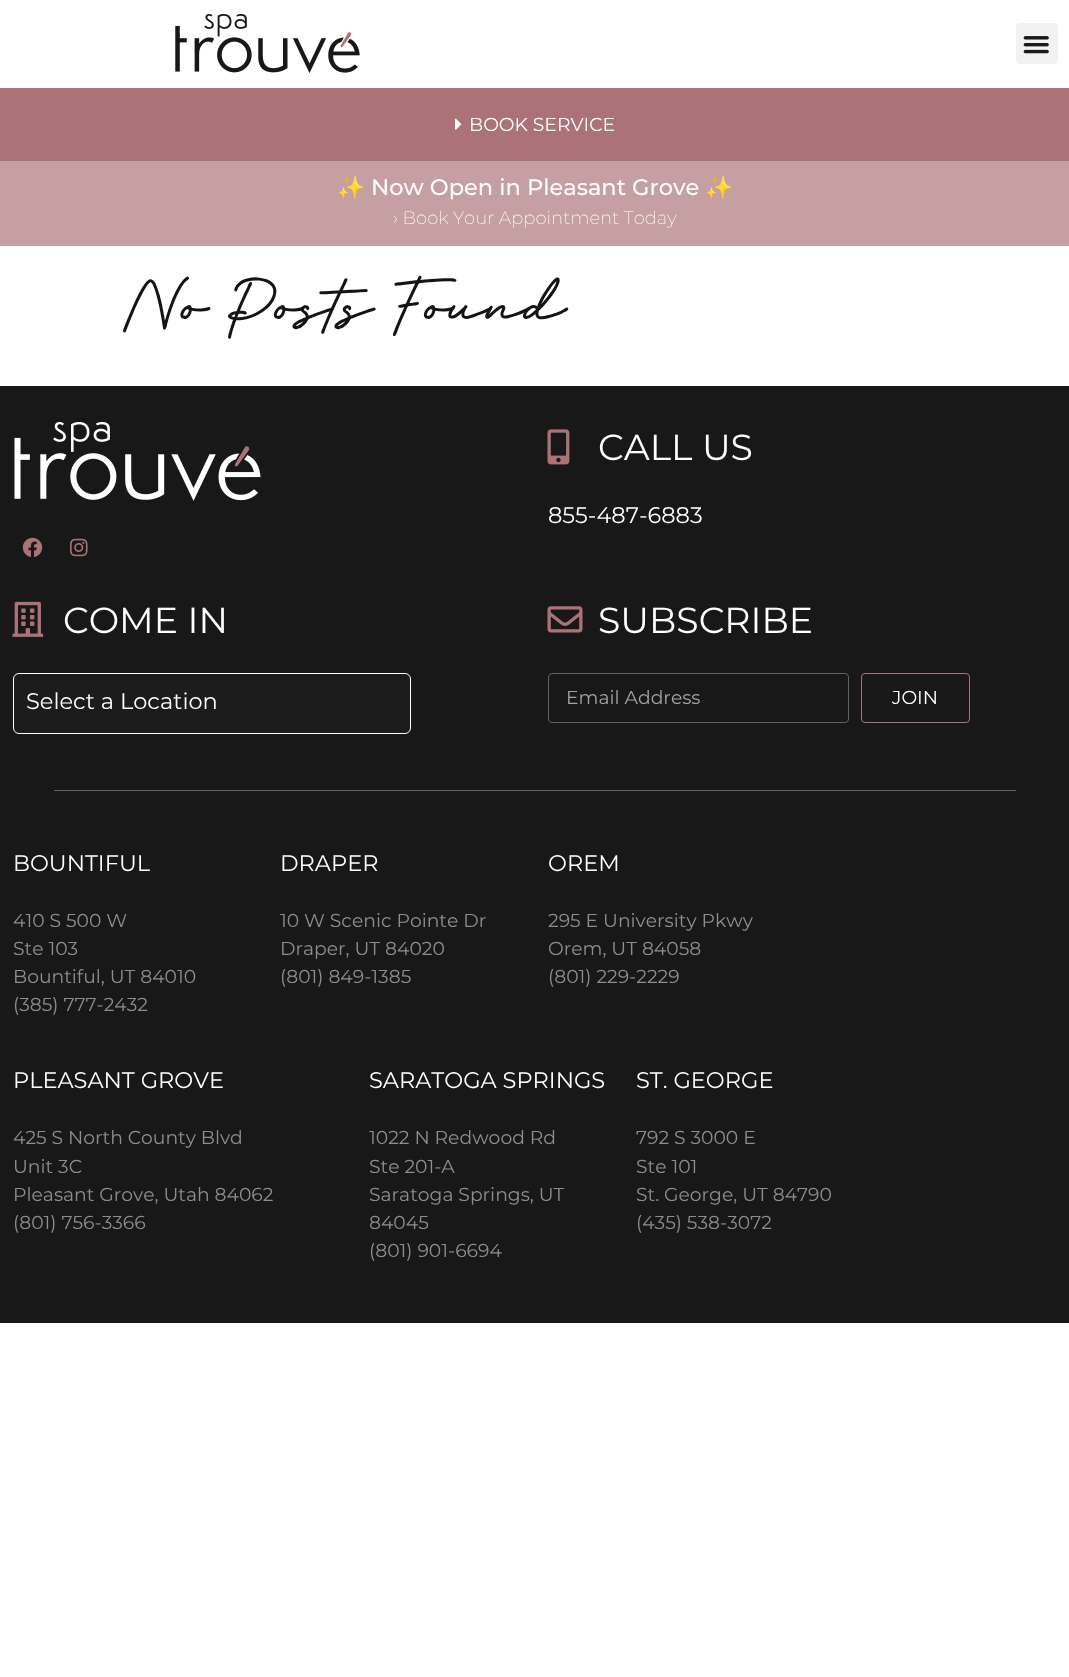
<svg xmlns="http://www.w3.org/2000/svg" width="1069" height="1677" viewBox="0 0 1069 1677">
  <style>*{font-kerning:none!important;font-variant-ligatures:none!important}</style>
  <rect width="100%" height="100%" fill="#ffffff"/>
  <image x="175" y="14" width="185" height="59" href="img1.png"/>
  <rect x="1016" y="23" width="42" height="41" rx="4" fill="#f2f2f2"/>
  <image x="1023" y="36" width="26" height="18" href="img2.png"/>
  <rect x="0" y="88" width="1069" height="73" fill="#ab7378"/>
  <image x="455" y="118" width="7" height="12" href="img3.png"/>
  <text x="469" y="131" font-family="Montserrat" font-size="18.75" fill="#ffffff">BOOK SERVICE</text>
  <rect x="0" y="161" width="1069" height="85" fill="#c69fa3"/>
  <text x="337" y="195" font-family="Noto Color Emoji" font-size="22.5" fill="#ffffff">✨</text>
  <text x="371" y="195" font-family="Montserrat" font-size="22.5" font-weight="500" fill="#ffffff">Now Open in Pleasant Grove</text>
  <text x="705" y="195" font-family="Noto Color Emoji" font-size="22.5" fill="#ffffff">✨</text>
  <text x="393" y="224" font-family="Montserrat" font-size="18" font-weight="200" fill="#ffffff">› Book Your Appointment Today</text>
  <text x="123" y="332" font-family="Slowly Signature" font-size="101.25" fill="#141414">No Posts Found</text>
  <rect x="0" y="386" width="1069" height="937" fill="#181818"/>
  <image x="14" y="422" width="247" height="79" href="img4.png"/>
  <image x="22" y="537" width="21" height="20" href="img5.png"/>
  <image x="70" y="538" width="18" height="19" href="img6.png"/>
  <image x="547" y="429" width="23" height="36" href="img7.png"/>
  <text x="598" y="460" font-family="Montserrat" font-size="36.25" fill="#ffffff">CALL US</text>
  <text x="548" y="523" font-family="Montserrat" font-size="22.5" fill="#ffffff">855-487-6883</text>
  <image x="12" y="601" width="32" height="36" href="img8.png"/>
  <text x="63" y="633" font-family="Montserrat" font-size="36.25" fill="#ffffff">COME IN</text>
  <rect x="13.5" y="673.5" width="397" height="60" rx="5.5" fill="#1c1c1c" stroke="#ffffff"/>
  <text x="26" y="709" font-family="Montserrat" font-size="22.5" fill="#ffffff">Select a Location</text>
  <image x="547" y="606" width="36" height="27" href="img9.png"/>
  <text x="598" y="633" font-family="Montserrat" font-size="36.25" fill="#ffffff">SUBSCRIBE</text>
  <rect x="548.5" y="673.5" width="300" height="49" rx="3.5" fill="none" stroke="#616161"/>
  <text x="566" y="704" font-family="Montserrat" font-size="18.75" fill="#a3a3a3">Email Address</text>
  <rect x="861.5" y="673.5" width="108" height="49" rx="3.5" fill="none" stroke="#ab7378"/>
  <text x="892" y="704" font-family="Montserrat" font-size="18.75" fill="#ffffff">JOIN</text>
  <rect x="54" y="790" width="962" height="1" fill="#616161"/>
  <text x="13" y="871" font-family="Montserrat" font-size="22.5" fill="#ffffff">BOUNTIFUL</text>
  <text x="13" y="927" font-family="Montserrat" font-size="18.75" fill="#8e8e8e">410 S 500 W</text>
  <text x="13" y="955" font-family="Montserrat" font-size="18.75" fill="#8e8e8e">Ste 103</text>
  <text x="13" y="983" font-family="Montserrat" font-size="18.75" fill="#8e8e8e">Bountiful, UT 84010</text>
  <text x="13" y="1011" font-family="Montserrat" font-size="18.75" fill="#8e8e8e">(385) 777-2432</text>
  <text x="280" y="871" font-family="Montserrat" font-size="22.5" fill="#ffffff">DRAPER</text>
  <text x="280" y="927" font-family="Montserrat" font-size="18.75" fill="#8e8e8e">10 W Scenic Pointe Dr</text>
  <text x="280" y="955" font-family="Montserrat" font-size="18.75" fill="#8e8e8e">Draper, UT 84020</text>
  <text x="280" y="983" font-family="Montserrat" font-size="18.75" fill="#8e8e8e">(801) 849-1385</text>
  <text x="548" y="871" font-family="Montserrat" font-size="22.5" fill="#ffffff">OREM</text>
  <text x="548" y="927" font-family="Montserrat" font-size="18.75" fill="#8e8e8e">295 E University Pkwy</text>
  <text x="548" y="955" font-family="Montserrat" font-size="18.75" fill="#8e8e8e">Orem, UT 84058</text>
  <text x="548" y="983" font-family="Montserrat" font-size="18.75" fill="#8e8e8e">(801) 229-2229</text>
  <text x="13" y="1088" font-family="Montserrat" font-size="22.5" fill="#ffffff">PLEASANT GROVE</text>
  <text x="13" y="1144" font-family="Montserrat" font-size="18.75" fill="#8e8e8e">425 S North County Blvd</text>
  <text x="13" y="1173" font-family="Montserrat" font-size="18.75" fill="#8e8e8e">Unit 3C</text>
  <text x="13" y="1201" font-family="Montserrat" font-size="18.75" fill="#8e8e8e">Pleasant Grove, Utah 84062</text>
  <text x="13" y="1229" font-family="Montserrat" font-size="18.75" fill="#8e8e8e">(801) 756-3366</text>
  <text x="369" y="1088" font-family="Montserrat" font-size="22.5" fill="#ffffff">SARATOGA SPRINGS</text>
  <text x="369" y="1144" font-family="Montserrat" font-size="18.75" fill="#8e8e8e">1022 N Redwood Rd</text>
  <text x="369" y="1173" font-family="Montserrat" font-size="18.75" fill="#8e8e8e">Ste 201-A</text>
  <text x="369" y="1201" font-family="Montserrat" font-size="18.75" fill="#8e8e8e">Saratoga Springs, UT</text>
  <text x="369" y="1229" font-family="Montserrat" font-size="18.75" fill="#8e8e8e">84045</text>
  <text x="369" y="1257" font-family="Montserrat" font-size="18.75" fill="#8e8e8e">(801) 901-6694</text>
  <text x="636" y="1088" font-family="Montserrat" font-size="22.5" fill="#ffffff">ST. GEORGE</text>
  <text x="636" y="1144" font-family="Montserrat" font-size="18.75" fill="#8e8e8e">792 S 3000 E</text>
  <text x="636" y="1173" font-family="Montserrat" font-size="18.75" fill="#8e8e8e">Ste 101</text>
  <text x="636" y="1201" font-family="Montserrat" font-size="18.75" fill="#8e8e8e">St. George, UT 84790</text>
  <text x="636" y="1229" font-family="Montserrat" font-size="18.75" fill="#8e8e8e">(435) 538-3072</text>
</svg>
